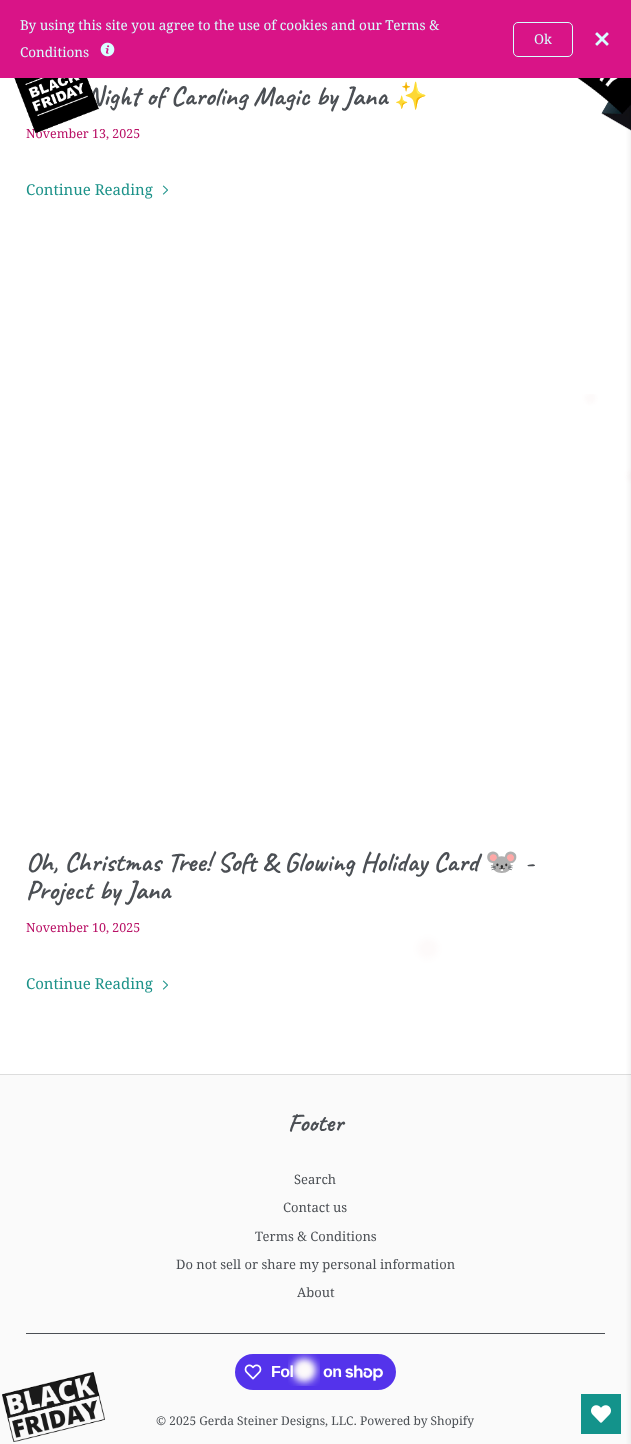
<svg xmlns="http://www.w3.org/2000/svg" width="631" height="1444" viewBox="0 0 631 1444">
  <defs>
    <filter id="blur1" x="-50%" y="-200%" width="200%" height="500%"><feGaussianBlur stdDeviation="3"/></filter>
  </defs>
  <rect width="100%" height="100%" fill="#ffffff"/>
  <image x="577" y="78" width="54" height="53" href="img4.png"/>
  <text x="26" y="871" font-family="Caveat" font-size="27" font-weight="bold" fill="#4b4f54">Oh, Christmas Tree! Soft &amp; Glowing Holiday Card</text>
  <text x="485" y="871" font-family="Noto Color Emoji" font-size="27" font-weight="bold" fill="#4b4f54">🐭</text>
  <text x="525" y="871" font-family="Caveat" font-size="27" font-weight="bold" fill="#4b4f54">-</text>
  <rect x="0" y="1075" width="631" height="369" fill="#fafafa"/>
  <rect x="0" y="1074" width="631" height="1" fill="#dddddd"/>
  <text x="288" y="1131" font-family="Caveat" font-size="25" font-weight="bold" fill="#4b4f54">Footer</text>
  <text x="294" y="1184" font-family="Droid Serif" font-size="13" fill="#4b4f54">Search</text>
  <text x="283" y="1212" font-family="Droid Serif" font-size="13" fill="#4b4f54">Contact us</text>
  <text x="255" y="1241" font-family="Droid Serif" font-size="13" fill="#4b4f54">Terms &amp; Conditions</text>
  <text x="176" y="1269" font-family="Droid Serif" font-size="13" fill="#4b4f54">Do not sell or share my personal information</text>
  <text x="297" y="1297" font-family="Droid Serif" font-size="13" fill="#4b4f54">About</text>
  <rect x="26" y="1333" width="579" height="1" fill="#4b4f54"/>
  <rect x="235" y="1354" width="161" height="36" rx="18" fill="#5433eb"/>
  <text x="271" y="1377" font-family="Liberation Sans" font-size="16" font-weight="bold" letter-spacing="-0.5" fill="#ffffff">Fol</text>
  <text x="323" y="1377" font-family="Liberation Sans" font-size="16" font-weight="bold" letter-spacing="-0.5" fill="#ffffff">on</text>
  <image x="345" y="1365" width="38" height="16" href="img9.png"/>
  <image x="288" y="394" width="343" height="992" href="img6.png"/>
  <rect x="631" y="4" width="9" height="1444" fill="#000000" fill-opacity="0.1" filter="url(#blur1)"/>
  <rect x="0" y="0" width="631" height="78" fill="#d91487"/>
  <text x="20" y="30" font-family="Droid Serif" font-size="13.5" fill="#d9ffff">By using this site you agree to the use of cookies and our Terms &amp;</text>
  <text x="20" y="57" font-family="Droid Serif" font-size="13.5" fill="#d9ffff">Conditions</text>
  <image x="100" y="42" width="15" height="15" href="img1.png"/>
  <rect x="513.5" y="22.5" width="59" height="34" rx="4.5" fill="none" stroke="#d9ffff"/>
  <text x="534" y="44" font-family="Droid Serif" font-size="13.5" fill="#d9ffff">Ok</text>
  <image x="595" y="32" width="14" height="14" href="img2.png"/>
  <text x="86" y="105" font-family="Caveat" font-size="27" font-weight="bold" fill="#4b4f54">Night of Caroling Magic by Jana</text>
  <text x="26" y="138" font-family="Droid Serif" font-size="12.5" fill="#b91166">November 13, 2025</text>
  <image x="14" y="78" width="85" height="56" href="img3.png"/>
  <text x="394" y="105" font-family="Noto Color Emoji" font-size="27" font-weight="bold" fill="#4b4f54">✨</text>
  <text x="26" y="195" font-family="Droid Serif" font-size="15" fill="#1c9289">Continue Reading</text>
  <image x="162" y="185" width="6" height="10" href="img5.png"/>
  <text x="26" y="899" font-family="Caveat" font-size="27" font-weight="bold" fill="#4b4f54">Project by Jana</text>
  <text x="26" y="932" font-family="Droid Serif" font-size="12.5" fill="#b91166">November 10, 2025</text>
  <text x="26" y="989" font-family="Droid Serif" font-size="15" fill="#1c9289">Continue Reading</text>
  <image x="162" y="980" width="6" height="10" href="img5.png"/>
  <image x="2" y="1372" width="103" height="70" href="img7.png"/>
  <image x="244" y="1364" width="18" height="16" href="img8.png"/>
  <text x="156" y="1425" font-family="Droid Serif" font-size="12" fill="#4b4f54">© 2025 Gerda Steiner Designs, LLC. Powered by Shopify</text>
  <rect x="581" y="1394" width="40" height="40" fill="#13938b"/>
  <image x="591" y="1405" width="20" height="18" href="img10.png"/>
</svg>
